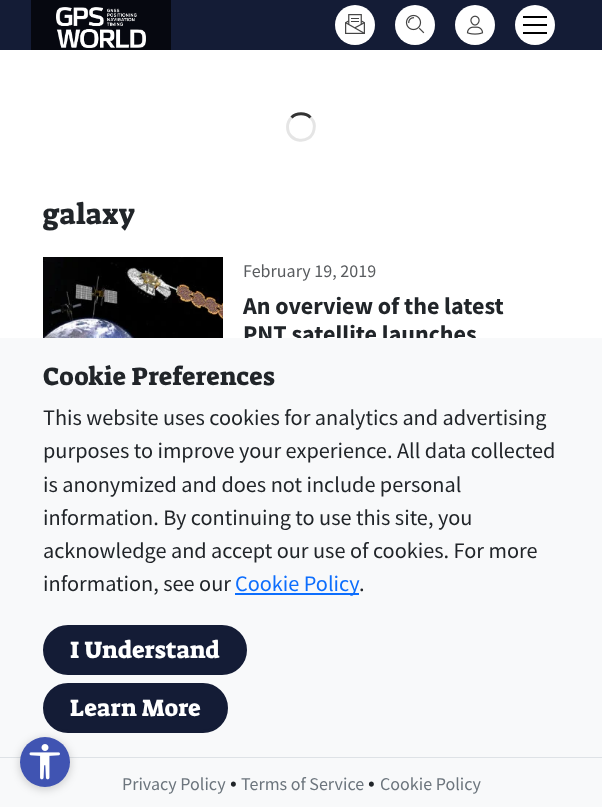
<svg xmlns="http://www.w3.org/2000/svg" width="602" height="807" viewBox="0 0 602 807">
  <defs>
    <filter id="blur1" x="-50%" y="-200%" width="200%" height="500%"><feGaussianBlur stdDeviation="5"/></filter>
  </defs>
  <rect width="100%" height="100%" fill="#ffffff"/>
  <rect x="0" y="0" width="602" height="50" fill="#141c36"/>
  <rect x="31" y="0" width="140" height="50" fill="#060810"/>
  <image x="56" y="7" width="90" height="41" href="img1.png"/>
  <circle cx="355" cy="25" r="20" fill="#ffffff"/>
  <image x="345" y="14" width="20" height="20" href="img2.png"/>
  <circle cx="415" cy="25" r="20" fill="#ffffff"/>
  <image x="405" y="14" width="20" height="20" href="img3.png"/>
  <circle cx="475" cy="25" r="20" fill="#ffffff"/>
  <image x="466" y="15" width="18" height="20" href="img4.png"/>
  <circle cx="535" cy="25" r="20" fill="#ffffff"/>
  <rect x="523" y="16" width="24" height="2" fill="#000000"/>
  <rect x="523" y="24" width="24" height="2" fill="#000000"/>
  <rect x="523" y="32" width="24" height="2" fill="#000000"/>
  <path d="M291.5 117.5C296.5 112.5 305.5 112.5 310.5 117.5" fill="none" stroke="#333333" stroke-width="3"/>
  <path d="M310.5 117.5C313.5 120.5 315 125.5 314 129.5C311 145.5 287.5 143 287.5 127C287.5 123.5 289 120 291.5 117.5" fill="none" stroke="#000000" stroke-opacity="0.1" stroke-width="3"/>
  <text x="43" y="224" font-family="Suez One" font-size="29" fill="#212529">galaxy</text>
  <image x="43" y="257" width="180" height="81" href="img5.png"/>
  <text x="243" y="277" font-family="Source Sans Pro" font-size="18" fill="#595c5f">February 19, 2019</text>
  <text x="243" y="314" font-family="Source Sans Pro" font-size="24" font-weight="bold" fill="#212529">An overview of the latest</text>
  <text x="243" y="342" font-family="Source Sans Pro" font-size="24" font-weight="bold" fill="#212529">PNT satellite launches</text>
  <rect x="0" y="338" width="602" height="469" fill="#f8f9fa"/>
  <text x="43" y="385" font-family="Suez One" font-size="25.5" fill="#212529">Cookie Preferences</text>
  <text x="43" y="425" font-family="Source Sans Pro" font-size="22.25" fill="#212529">This website uses cookies for analytics and advertising</text>
  <text x="43" y="458" font-family="Source Sans Pro" font-size="22.25" fill="#212529">purposes to improve your experience. All data collected</text>
  <text x="43" y="492" font-family="Source Sans Pro" font-size="22.25" fill="#212529">is anonymized and does not include personal</text>
  <text x="43" y="525" font-family="Source Sans Pro" font-size="22.25" fill="#212529">information. By continuing to use this site, you</text>
  <text x="43" y="558" font-family="Source Sans Pro" font-size="22.25" fill="#212529">acknowledge and accept our use of cookies. For more</text>
  <text x="43" y="591" font-family="Source Sans Pro" font-size="22.25" fill="#212529">information, see our</text>
  <rect x="235" y="593" width="124" height="2" fill="#0d6efd"/>
  <text x="235" y="591" font-family="Source Sans Pro" font-size="22.25" fill="#0d6efd">Cookie Policy</text>
  <text x="359" y="591" font-family="Source Sans Pro" font-size="22.25" fill="#212529">.</text>
  <rect x="44.5" y="626.5" width="201" height="47" rx="23.5" fill="#141c36" stroke="#141c36" stroke-width="3"/>
  <text x="70" y="658" font-family="Suez One" font-size="24" fill="#ffffff">I Understand</text>
  <rect x="44.5" y="684.5" width="182" height="47" rx="23.5" fill="#141c36" stroke="#141c36" stroke-width="3"/>
  <text x="70" y="716" font-family="Suez One" font-size="24" fill="#ffffff">Learn More</text>
  <rect x="0" y="757" width="602" height="1" fill="#dee2e6"/>
  <text x="122" y="790" font-family="Source Sans Pro" font-size="18" fill="#6c757d">Privacy Policy</text>
  <text x="230" y="790" font-family="Source Sans Pro" font-size="22.25" fill="#212529">•</text>
  <text x="241" y="790" font-family="Source Sans Pro" font-size="18" fill="#6c757d">Terms of Service</text>
  <text x="368" y="790" font-family="Source Sans Pro" font-size="22.25" fill="#212529">•</text>
  <text x="380" y="790" font-family="Source Sans Pro" font-size="18" fill="#6c757d">Cookie Policy</text>
  <rect x="20" y="739" width="50" height="50" rx="25" fill="#000000" fill-opacity="0.2" filter="url(#blur1)"/>
  <circle cx="45" cy="762" r="25" fill="#4054b2"/>
  <image x="29" y="744" width="31" height="36" href="img6.png"/>
</svg>
